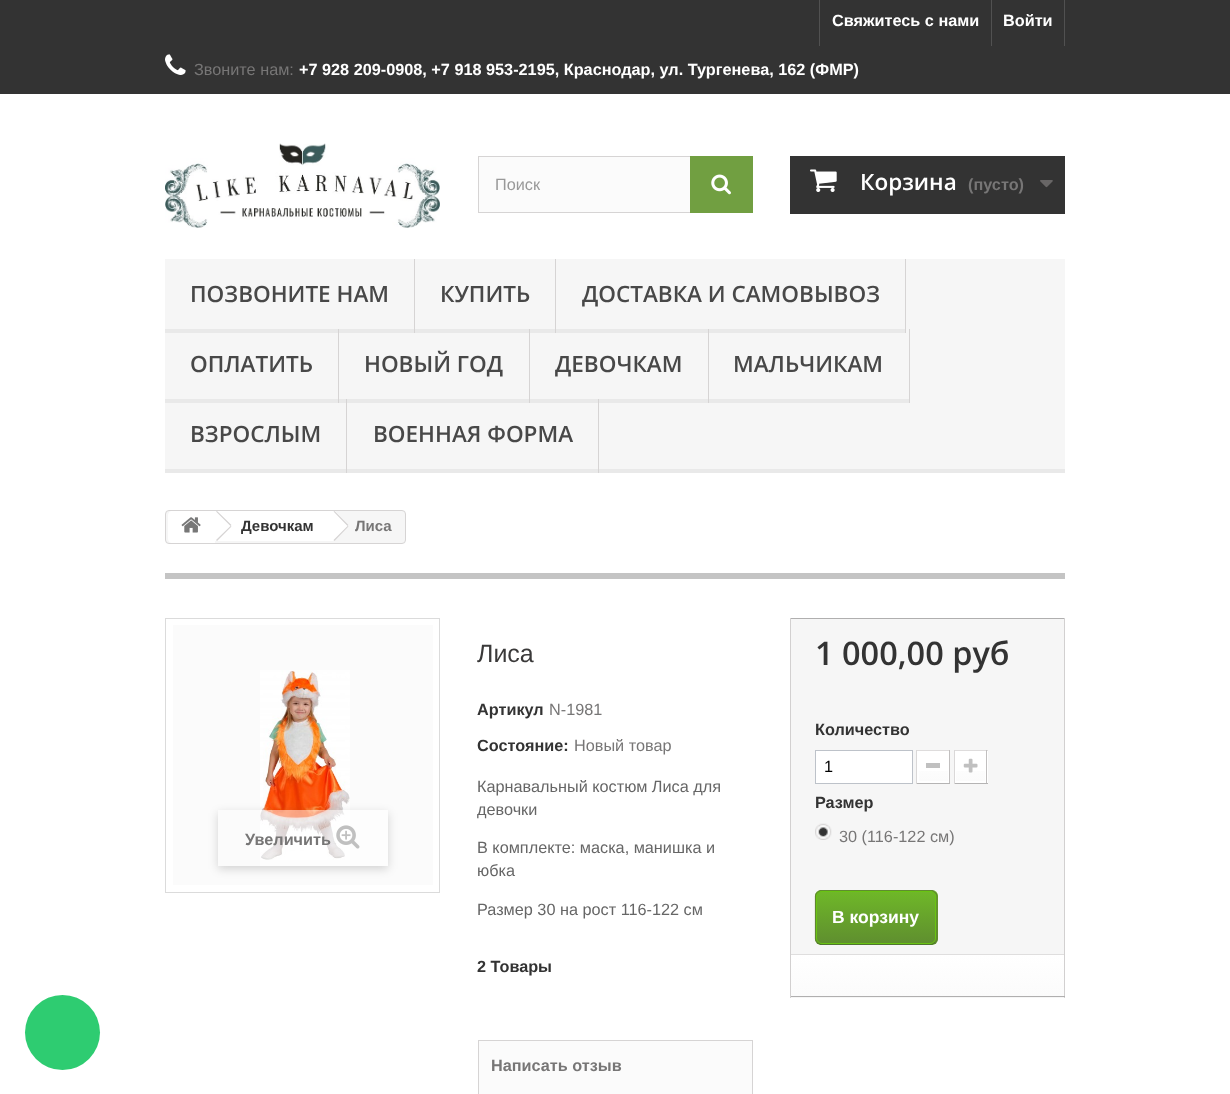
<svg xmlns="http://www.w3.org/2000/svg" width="1230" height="1094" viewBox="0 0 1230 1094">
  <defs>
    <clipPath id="clip1"><path d="M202 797H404V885H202ZM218 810H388V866H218Z" clip-rule="evenodd"/></clipPath>
    <filter id="blur1" x="-50%" y="-200%" width="200%" height="500%"><feGaussianBlur stdDeviation="5"/></filter>
    <linearGradient id="g1" gradientUnits="userSpaceOnUse" x1="933" y1="753" x2="933" y2="781"><stop offset="0" stop-color="#ffffff"/><stop offset="1" stop-color="#fbfbfb"/></linearGradient>
    <linearGradient id="g2" gradientUnits="userSpaceOnUse" x1="971" y1="753" x2="971" y2="781"><stop offset="0" stop-color="#ffffff"/><stop offset="1" stop-color="#fbfbfb"/></linearGradient>
    <clipPath id="clip2"><rect x="815" y="890" width="123" height="55" rx="6"/></clipPath>
    <linearGradient id="g3" gradientUnits="userSpaceOnUse" x1="876" y1="839" x2="876" y2="891"><stop offset="0" stop-color="#6fb828"/><stop offset="1" stop-color="#5f8e2f"/></linearGradient>
    <linearGradient id="g4" gradientUnits="userSpaceOnUse" x1="876" y1="891" x2="876" y2="944"><stop offset="0" stop-color="#6fb828"/><stop offset="1" stop-color="#5f8e2f"/></linearGradient>
    <linearGradient id="g5" gradientUnits="userSpaceOnUse" x1="876" y1="944" x2="876" y2="996"><stop offset="0" stop-color="#6fb828"/><stop offset="1" stop-color="#5f8e2f"/></linearGradient>
    <linearGradient id="g6" gradientUnits="userSpaceOnUse" x1="928" y1="955" x2="928" y2="996"><stop offset="0" stop-color="#ffffff"/><stop offset="1" stop-color="#fbfbfb"/></linearGradient>
  </defs>
  <rect width="100%" height="100%" fill="#ffffff"/>
  <rect x="0" y="0" width="1230" height="94" fill="#333333"/>
  <rect x="819" y="0" width="1" height="46" fill="#515151"/>
  <text x="832" y="26" font-family="Liberation Sans" font-size="16.25" font-weight="bold" fill="#ffffff">Свяжитесь с нами</text>
  <rect x="1064" y="0" width="1" height="46" fill="#515151"/>
  <rect x="991" y="0" width="1" height="46" fill="#515151"/>
  <text x="1003" y="26" font-family="Liberation Sans" font-size="16.25" font-weight="bold" fill="#ffffff">Войти</text>
  <image x="165" y="54" width="21" height="21" href="img1.png"/>
  <text x="194" y="75" font-family="Liberation Sans" font-size="16.25" fill="#777676">Звоните нам:</text>
  <text x="299" y="75" font-family="Liberation Sans" font-size="16.25" font-weight="bold" fill="#ffffff">+7 928 209-0908, +7 918 953-2195, Краснодар, ул. Тургенева, 162 (ФМР)</text>
  <image x="165" y="143" width="275" height="85" href="img2.png"/>
  <rect x="479" y="157" width="211" height="55" fill="#fbfbfb"/>
  <rect x="478.5" y="156.5" width="274" height="56" fill="none" stroke="#d6d4d4"/>
  <text x="495" y="190" font-family="Liberation Sans" font-size="16.25" fill="#999999">Поиск</text>
  <rect x="690" y="156" width="63" height="57" fill="#719f41"/>
  <image x="711" y="174" width="20" height="21" href="img3.png"/>
  <rect x="790" y="156" width="275" height="58" fill="#333333"/>
  <image x="810" y="169" width="27" height="23" href="img4.png"/>
  <text x="860" y="190" font-family="Open Sans" font-size="22.5" font-weight="600" fill="#ffffff">Корзина</text>
  <text x="968" y="190" font-family="Liberation Sans" font-size="16.25" font-weight="bold" fill="#777676">(пусто)</text>
  <image x="1040" y="180" width="13" height="8" href="img5.png"/>
  <rect x="165" y="259" width="900" height="210" fill="#f6f6f6"/>
  <rect x="165" y="469" width="900" height="4" fill="#e9e9e9"/>
  <rect x="414" y="259" width="1" height="74" fill="#d6d4d4"/>
  <rect x="165" y="329" width="249" height="4" fill="#e9e9e9"/>
  <text x="190" y="302" font-family="Open Sans" font-size="22.5" font-weight="600" fill="#484848">ПОЗВОНИТЕ НАМ</text>
  <rect x="555" y="259" width="1" height="74" fill="#d6d4d4"/>
  <rect x="415" y="329" width="140" height="4" fill="#e9e9e9"/>
  <text x="440" y="302" font-family="Open Sans" font-size="22.5" font-weight="600" fill="#484848">КУПИТЬ</text>
  <rect x="905" y="259" width="1" height="74" fill="#d6d4d4"/>
  <rect x="556" y="329" width="349" height="4" fill="#e9e9e9"/>
  <text x="582" y="302" font-family="Open Sans" font-size="22.5" font-weight="600" fill="#484848">ДОСТАВКА И САМОВЫВОЗ</text>
  <rect x="338" y="329" width="1" height="74" fill="#d6d4d4"/>
  <rect x="165" y="399" width="173" height="4" fill="#e9e9e9"/>
  <text x="190" y="372" font-family="Open Sans" font-size="22.5" font-weight="600" fill="#484848">ОПЛАТИТЬ</text>
  <rect x="529" y="329" width="1" height="74" fill="#d6d4d4"/>
  <rect x="339" y="399" width="190" height="4" fill="#e9e9e9"/>
  <text x="364" y="372" font-family="Open Sans" font-size="22.5" font-weight="600" fill="#484848">НОВЫЙ ГОД</text>
  <rect x="708" y="329" width="1" height="74" fill="#d6d4d4"/>
  <rect x="530" y="399" width="178" height="4" fill="#e9e9e9"/>
  <text x="555" y="372" font-family="Open Sans" font-size="22.5" font-weight="600" fill="#484848">ДЕВОЧКАМ</text>
  <rect x="909" y="329" width="1" height="74" fill="#d6d4d4"/>
  <rect x="709" y="399" width="200" height="4" fill="#e9e9e9"/>
  <text x="733" y="372" font-family="Open Sans" font-size="22.5" font-weight="600" fill="#484848">МАЛЬЧИКАМ</text>
  <rect x="346" y="399" width="1" height="74" fill="#d6d4d4"/>
  <text x="190" y="442" font-family="Open Sans" font-size="22.5" font-weight="600" fill="#484848">ВЗРОСЛЫМ</text>
  <rect x="598" y="399" width="1" height="74" fill="#d6d4d4"/>
  <text x="373" y="442" font-family="Open Sans" font-size="22.5" font-weight="600" fill="#484848">ВОЕННАЯ ФОРМА</text>
  <circle cx="62.5" cy="1032.5" r="37.5" fill="#2ecc71"/>
  <rect x="165.5" y="510.5" width="240" height="33" rx="3.5" fill="#f6f6f6" stroke="#d6d4d4"/>
  <path d="M172 511H215V543H172C170 543 168 541 168 539V515C168 513 170 511 172 511Z" fill="#ffffff"/>
  <image x="181" y="517" width="20" height="16" href="img6.png"/>
  <rect x="215" y="511" width="118" height="30" fill="#ffffff"/>
  <path d="M217 511L231.5 525L230.5 526L216 511.5ZM230.5 526L231.5 526.5L217 541L216 540Z" fill="#d6d4d4"/>
  <text x="241" y="531" font-family="Liberation Sans" font-size="15" font-weight="bold" fill="#333333">Девочкам</text>
  <path d="M335.5 511.5L335 511H332.5L332 511.5L319.5 524C318.5 525 318.5 526.5 319.5 527.5L332 540C333 541 334.5 541 335.5 540L347.5 527.5C348.5 526.5 348.5 525 347.5 524Z" fill="#ffffff"/>
  <path d="M334.5 511L348.5 525L347.5 526L333.5 511.5ZM347.5 526L348.5 526.5L334.5 541L333.5 540Z" fill="#d6d4d4"/>
  <text x="355" y="531" font-family="Liberation Sans" font-size="15" font-weight="bold" fill="#777676">Лиса</text>
  <rect x="165" y="573" width="900" height="6" fill="#c4c4c4"/>
  <rect x="165.5" y="618.5" width="274" height="274" fill="none" stroke="#dbdbdb"/>
  <rect x="173" y="625" width="260" height="260" fill="#fbfbfb"/>
  <image x="260" y="670" width="90" height="190" href="img7.png"/>
  <g clip-path="url(#clip1)">
    <rect x="218" y="813" width="170" height="56" fill="#000000" fill-opacity="0.16" filter="url(#blur1)"/>
  </g>
  <rect x="260" y="810" width="128" height="56" fill="#ffffff" fill-opacity="0.5"/>
  <text x="245" y="845" font-family="Liberation Sans" font-size="16.25" font-weight="bold" fill="#777676">Увеличить</text>
  <image x="336" y="825" width="24" height="24" href="img8.png"/>
  <text x="477" y="662" font-family="Liberation Sans" font-size="25" fill="#3a3939">Лиса</text>
  <text x="477" y="715" font-family="Liberation Sans" font-size="16.25" font-weight="bold" fill="#333333">Артикул</text>
  <text x="549" y="715" font-family="Liberation Sans" font-size="16.25" fill="#777676">N-1981</text>
  <text x="477" y="751" font-family="Liberation Sans" font-size="16.25" font-weight="bold" fill="#333333">Состояние:</text>
  <text x="574" y="751" font-family="Liberation Sans" font-size="16.25" fill="#777676">Новый товар</text>
  <text x="477" y="792" font-family="Liberation Sans" font-size="16.25" fill="#666666">Карнавальный костюм Лиса для</text>
  <text x="477" y="815" font-family="Liberation Sans" font-size="16.25" fill="#666666">девочки</text>
  <text x="477" y="853" font-family="Liberation Sans" font-size="16.25" fill="#666666">В комплекте: маска, манишка и</text>
  <text x="477" y="876" font-family="Liberation Sans" font-size="16.25" fill="#666666">юбка</text>
  <text x="477" y="915" font-family="Liberation Sans" font-size="16.25" fill="#666666">Размер 30 на рост 116-122 см</text>
  <text x="477" y="972" font-family="Liberation Sans" font-size="16.25" font-weight="bold" fill="#333333">2 Товары</text>
  <rect x="478.5" y="1040.5" width="274" height="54" fill="#fbfbfb" stroke="#d6d4d4"/>
  <text x="491" y="1071" font-family="Liberation Sans" font-size="16.25" font-weight="bold" fill="#777676">Написать отзыв</text>
  <rect x="791" y="619" width="273" height="379" fill="#f6f6f6"/>
  <rect x="790" y="618" width="275" height="1" fill="#b0afaf"/>
  <rect x="1064" y="618" width="1" height="380" fill="#d2d0d0"/>
  <rect x="790" y="996" width="275" height="1" fill="#b0afaf"/>
  <rect x="790" y="618" width="1" height="380" fill="#d2d0d0"/>
  <text x="815" y="665" font-family="Open Sans" font-size="32.5" font-weight="600" fill="#333333">1 000,00 руб</text>
  <text x="815" y="735" font-family="Liberation Sans" font-size="16.25" font-weight="bold" fill="#333333">Количество</text>
  <rect x="815.5" y="750.5" width="97" height="33" fill="#ffffff" stroke="#bdc2c9"/>
  <text x="824" y="772" font-family="Liberation Sans" font-size="16.25" fill="#000000">1</text>
  <rect x="917" y="751" width="31" height="32" fill="#ffffff"/>
  <rect x="916" y="750" width="34" height="1" fill="#dedcdc"/>
  <rect x="949" y="750" width="1" height="34" fill="#c1bfbf"/>
  <rect x="916" y="783" width="34" height="1" fill="#b5b4b4"/>
  <rect x="916" y="750" width="1" height="34" fill="#dad8d8"/>
  <rect x="919" y="771" width="29" height="10" fill="url(#g1)"/>
  <rect x="918.5" y="751.5" width="30" height="31" fill="none" stroke="#ffffff"/>
  <rect x="926" y="763" width="14" height="5" fill="#c0c0c0"/>
  <rect x="956" y="751" width="32" height="32" fill="#ffffff"/>
  <rect x="954" y="750" width="34" height="1" fill="#dedcdc"/>
  <rect x="986" y="750" width="1" height="34" fill="#c1bfbf"/>
  <rect x="954" y="783" width="34" height="1" fill="#b5b4b4"/>
  <rect x="954" y="750" width="1" height="34" fill="#dad8d8"/>
  <rect x="956" y="771" width="29" height="10" fill="url(#g2)"/>
  <rect x="955.5" y="751.5" width="30" height="31" fill="none" stroke="#ffffff"/>
  <image x="963" y="758" width="15" height="15" href="img9.png"/>
  <text x="815" y="808" font-family="Liberation Sans" font-size="16.25" font-weight="bold" fill="#333333">Размер</text>
  <image x="815" y="823" width="17" height="17" href="img10.png"/>
  <text x="839" y="842" font-family="Liberation Sans" font-size="16.25" fill="#777676">30 (116-122 см)</text>
  <g clip-path="url(#clip2)">
    <rect x="815" y="890" width="123" height="1" fill="url(#g3)"/>
    <rect x="815" y="891" width="123" height="53" fill="url(#g4)"/>
    <rect x="815" y="944" width="123" height="1" fill="url(#g5)"/>
  </g>
  <path d="M817.5 892.5L820.5 890.5H932L935 892.5" fill="none" stroke="#5f8c2f" stroke-width="1.2"/>
  <path d="M935 892.5C936.5 893.5 937 895 937 896V939C937 940 936.5 941.5 935 942.5" fill="none" stroke="#5f862f" stroke-width="1.2"/>
  <path d="M935 942.5L932 944.5H820.5L817.5 942.5" fill="none" stroke="#4f762f" stroke-width="1.2"/>
  <path d="M817.5 942.5C816 941.5 815.5 940 815.5 939V896C815.5 895 816 893.5 817.5 892.5" fill="none" stroke="#5f862f" stroke-width="1.2"/>
  <rect x="816.5" y="891.5" width="119" height="52" rx="5.5" fill="none" stroke="#69c412"/>
  <text x="832" y="923" font-family="Liberation Sans" font-size="17.5" font-weight="bold" fill="#ffffff">В корзину</text>
  <rect x="791" y="955" width="273" height="41" fill="url(#g6)"/>
  <rect x="791" y="954" width="273" height="1" fill="#dfdede"/>
</svg>
